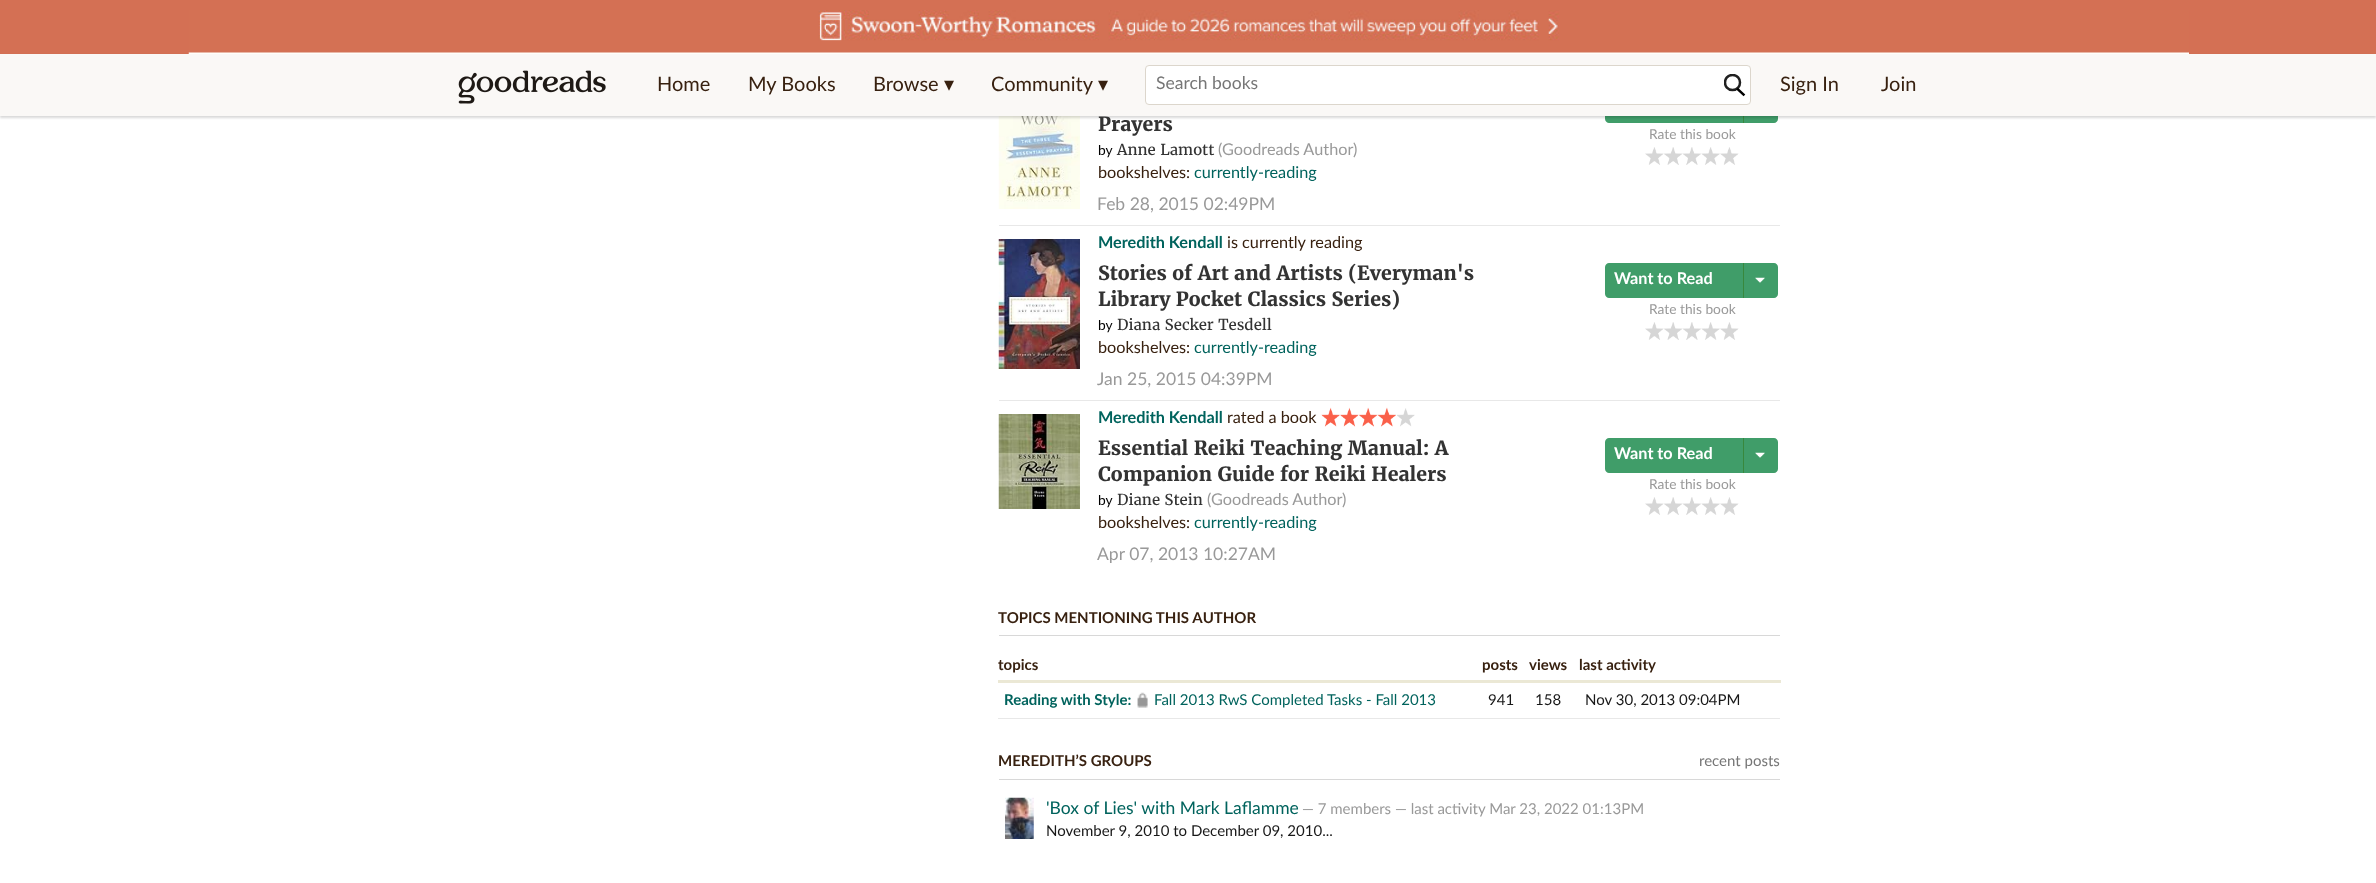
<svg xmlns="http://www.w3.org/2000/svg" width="2376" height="883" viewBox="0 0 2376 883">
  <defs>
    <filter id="blur1" x="-50%" y="-200%" width="200%" height="500%"><feGaussianBlur stdDeviation="1"/></filter>
    <clipPath id="clip1"><rect x="1724" y="74" width="22" height="24"/></clipPath>
  </defs>
  <rect width="100%" height="100%" fill="#ffffff"/>
  <rect x="0" y="0" width="2376" height="54" fill="#d47054"/>
  <image x="998" y="116" width="82" height="93" href="img3.png"/>
  <path d="M1609 88H1743V123H1609C1607 123 1605 121 1605 119V92C1605 90 1607 88 1609 88Z" fill="#409d69"/>
  <path d="M1743 88H1774C1776 88 1778 90 1778 92V119C1778 121 1776 123 1774 123H1743Z" fill="#409d69"/>
  <rect x="1743" y="116" width="1" height="7" fill="#38883d"/>
  <rect x="0" y="55" width="2376" height="63" fill="#000000" fill-opacity="0.15" filter="url(#blur1)"/>
  <image x="188" y="10" width="2001" height="44" href="img1.png"/>
  <rect x="0" y="54" width="2376" height="62" fill="#faf8f6"/>
  <image x="458" y="70" width="148" height="34" href="img2.png"/>
  <text x="657" y="91" font-family="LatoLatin" font-size="20" fill="#382110">Home</text>
  <text x="748" y="91" font-family="LatoLatin" font-size="20" fill="#382110">My Books</text>
  <text x="873" y="91" font-family="LatoLatin" font-size="20" fill="#382110">Browse</text>
  <text x="944" y="91" font-family="DejaVu Sans" font-size="20" fill="#382110">▾</text>
  <text x="991" y="91" font-family="LatoLatin" font-size="20" fill="#382110">Community</text>
  <text x="1098" y="91" font-family="DejaVu Sans" font-size="20" fill="#382110">▾</text>
  <rect x="1145.5" y="65.5" width="605" height="39" rx="3.5" fill="#ffffff" stroke="#dcd6cc"/>
  <text x="1156" y="89" font-family="LatoLatin" font-size="17.5" fill="#767676">Search books</text>
  <g clip-path="url(#clip1)">
    <path d="M1732.5 90C1742.5 90 1742.5 75 1732.5 75C1722.5 75 1722.5 90 1732.5 90Z" fill="none" stroke="#202020" stroke-width="2.5"/>
  </g>
  <path d="M1738 89.5L1743.5 94.5" fill="none" stroke="#000000" stroke-width="2.5" stroke-linecap="square"/>
  <text x="1780" y="91" font-family="LatoLatin" font-size="20" fill="#382110">Sign In</text>
  <text x="1881" y="91" font-family="LatoLatin" font-size="20" fill="#382110">Join</text>
  <text x="1098" y="131" font-family="Merriweather" font-size="19.5" font-weight="bold" fill="#333333">Prayers</text>
  <text x="1098" y="155" font-family="LatoLatin" font-size="13.75" fill="#000000">by</text>
  <text x="1117" y="155" font-family="Merriweather" font-size="15" fill="#333333">Anne Lamott</text>
  <text x="1218" y="155" font-family="LatoLatin" font-size="16.25" fill="#999999">(Goodreads Author)</text>
  <text x="1098" y="178" font-family="LatoLatin" font-size="16.25" fill="#382110">bookshelves:</text>
  <text x="1194" y="178" font-family="LatoLatin" font-size="16.25" fill="#00635d">currently-reading</text>
  <text x="1649" y="139" font-family="LatoLatin" font-size="13.75" fill="#999999">Rate this book</text>
  <image x="1645" y="147" width="19" height="18" href="img4.png"/>
  <image x="1664" y="147" width="19" height="18" href="img5.png"/>
  <image x="1682" y="147" width="19" height="18" href="img6.png"/>
  <image x="1701" y="147" width="19" height="18" href="img7.png"/>
  <image x="1720" y="147" width="19" height="18" href="img8.png"/>
  <text x="1097" y="210" font-family="LatoLatin" font-size="17.5" fill="#999999">Feb 28, 2015 02:49PM</text>
  <rect x="999" y="225" width="781" height="1" fill="#e8e8e8"/>
  <image x="998" y="239" width="82" height="130" href="img9.png"/>
  <text x="1098" y="248" font-family="LatoLatin" font-size="16.25" font-weight="bold" fill="#00635d">Meredith Kendall</text>
  <text x="1227" y="248" font-family="LatoLatin" font-size="16.25" fill="#382110">is currently reading</text>
  <text x="1098" y="280" font-family="Merriweather" font-size="19.5" font-weight="bold" fill="#333333">Stories of Art and Artists (Everyman's</text>
  <text x="1098" y="306" font-family="Merriweather" font-size="19.5" font-weight="bold" fill="#333333">Library Pocket Classics Series)</text>
  <text x="1098" y="330" font-family="LatoLatin" font-size="13.75" fill="#000000">by</text>
  <text x="1117" y="330" font-family="Merriweather" font-size="15" fill="#333333">Diana Secker Tesdell</text>
  <text x="1098" y="353" font-family="LatoLatin" font-size="16.25" fill="#382110">bookshelves:</text>
  <text x="1194" y="353" font-family="LatoLatin" font-size="16.25" fill="#00635d">currently-reading</text>
  <path d="M1609 263H1743V298H1609C1607 298 1605 296 1605 294V267C1605 265 1607 263 1609 263Z" fill="#409d69"/>
  <text x="1614" y="284" font-family="LatoLatin" font-size="16.25" font-weight="bold" fill="#ffffff">Want to Read</text>
  <path d="M1743 263H1774C1776 263 1778 265 1778 267V294C1778 296 1776 298 1774 298H1743Z" fill="#409d69"/>
  <rect x="1743" y="263" width="1" height="35" fill="#38883d"/>
  <image x="1755" y="277" width="10" height="6" href="img10.png"/>
  <text x="1649" y="314" font-family="LatoLatin" font-size="13.75" fill="#999999">Rate this book</text>
  <image x="1645" y="322" width="19" height="18" href="img4.png"/>
  <image x="1664" y="322" width="19" height="18" href="img5.png"/>
  <image x="1682" y="322" width="19" height="18" href="img6.png"/>
  <image x="1701" y="322" width="19" height="18" href="img7.png"/>
  <image x="1720" y="322" width="19" height="18" href="img8.png"/>
  <text x="1097" y="385" font-family="LatoLatin" font-size="17.5" fill="#999999">Jan 25, 2015 04:39PM</text>
  <rect x="999" y="400" width="781" height="1" fill="#e8e8e8"/>
  <image x="998" y="414" width="82" height="95" href="img11.png"/>
  <text x="1098" y="423" font-family="LatoLatin" font-size="16.25" font-weight="bold" fill="#00635d">Meredith Kendall</text>
  <text x="1227" y="423" font-family="LatoLatin" font-size="16.25" fill="#382110">rated a book</text>
  <image x="1321" y="407" width="19" height="20" href="img12.png"/>
  <image x="1340" y="407" width="19" height="20" href="img13.png"/>
  <image x="1359" y="407" width="19" height="20" href="img14.png"/>
  <image x="1377" y="407" width="19" height="20" href="img15.png"/>
  <image x="1397" y="408" width="18" height="19" href="img16.png"/>
  <text x="1098" y="455" font-family="Merriweather" font-size="19.5" font-weight="bold" fill="#333333">Essential Reiki Teaching Manual: A</text>
  <text x="1098" y="481" font-family="Merriweather" font-size="19.5" font-weight="bold" fill="#333333">Companion Guide for Reiki Healers</text>
  <text x="1098" y="505" font-family="LatoLatin" font-size="13.75" fill="#000000">by</text>
  <text x="1117" y="505" font-family="Merriweather" font-size="15" fill="#333333">Diane Stein</text>
  <text x="1207" y="505" font-family="LatoLatin" font-size="16.25" fill="#999999">(Goodreads Author)</text>
  <text x="1098" y="528" font-family="LatoLatin" font-size="16.25" fill="#382110">bookshelves:</text>
  <text x="1194" y="528" font-family="LatoLatin" font-size="16.25" fill="#00635d">currently-reading</text>
  <path d="M1609 438H1743V473H1609C1607 473 1605 471 1605 469V442C1605 440 1607 438 1609 438Z" fill="#409d69"/>
  <text x="1614" y="459" font-family="LatoLatin" font-size="16.25" font-weight="bold" fill="#ffffff">Want to Read</text>
  <path d="M1743 438H1774C1776 438 1778 440 1778 442V469C1778 471 1776 473 1774 473H1743Z" fill="#409d69"/>
  <rect x="1743" y="438" width="1" height="35" fill="#38883d"/>
  <image x="1755" y="452" width="10" height="6" href="img10.png"/>
  <text x="1649" y="489" font-family="LatoLatin" font-size="13.75" fill="#999999">Rate this book</text>
  <image x="1645" y="497" width="19" height="18" href="img4.png"/>
  <image x="1664" y="497" width="19" height="18" href="img5.png"/>
  <image x="1682" y="497" width="19" height="18" href="img6.png"/>
  <image x="1701" y="497" width="19" height="18" href="img7.png"/>
  <image x="1720" y="497" width="19" height="18" href="img8.png"/>
  <text x="1097" y="560" font-family="LatoLatin" font-size="17.5" fill="#999999">Apr 07, 2013 10:27AM</text>
  <rect x="999" y="635" width="781" height="1" fill="#d8d8d8"/>
  <text x="998" y="623" font-family="LatoLatin" font-size="15" font-weight="bold" fill="#382110">TOPICS MENTIONING THIS AUTHOR</text>
  <text x="998" y="670" font-family="LatoLatin" font-size="15" font-weight="bold" fill="#382110">topics</text>
  <text x="1482" y="670" font-family="LatoLatin" font-size="15" font-weight="bold" fill="#382110">posts</text>
  <text x="1529" y="670" font-family="LatoLatin" font-size="15" font-weight="bold" fill="#382110">views</text>
  <text x="1579" y="670" font-family="LatoLatin" font-size="15" font-weight="bold" fill="#382110">last activity</text>
  <rect x="998" y="680" width="783" height="3" fill="#ebe8d5"/>
  <text x="1004" y="705" font-family="LatoLatin" font-size="15" font-weight="bold" fill="#00635d">Reading with Style:</text>
  <image x="1137" y="692" width="11" height="16" href="img17.png"/>
  <text x="1154" y="705" font-family="LatoLatin" font-size="15" fill="#00635d">Fall 2013 RwS Completed Tasks - Fall 2013</text>
  <text x="1488" y="705" font-family="LatoLatin" font-size="15" fill="#181818">941</text>
  <text x="1535" y="705" font-family="LatoLatin" font-size="15" fill="#181818">158</text>
  <text x="1585" y="705" font-family="LatoLatin" font-size="15" fill="#181818">Nov 30, 2013 09:04PM</text>
  <rect x="998" y="718" width="782" height="1" fill="#e8e8e8"/>
  <rect x="999" y="779" width="781" height="1" fill="#d8d8d8"/>
  <text x="998" y="766" font-family="LatoLatin" font-size="15" font-weight="bold" fill="#382110">MEREDITH’S GROUPS</text>
  <text x="1699" y="766" font-family="LatoLatin" font-size="15" fill="#767676">recent posts</text>
  <image x="1005" y="797" width="29" height="42" href="img18.png"/>
  <text x="1046" y="814" font-family="LatoLatin" font-size="17.5" fill="#00635d">'Box of Lies' with Mark Laflamme</text>
  <text x="1302" y="814" font-family="LatoLatin" font-size="15" fill="#999999">— 7 members — last activity Mar 23, 2022 01:13PM</text>
  <text x="1046" y="836" font-family="LatoLatin" font-size="15" fill="#181818">November 9, 2010 to December 09, 2010...</text>
</svg>
